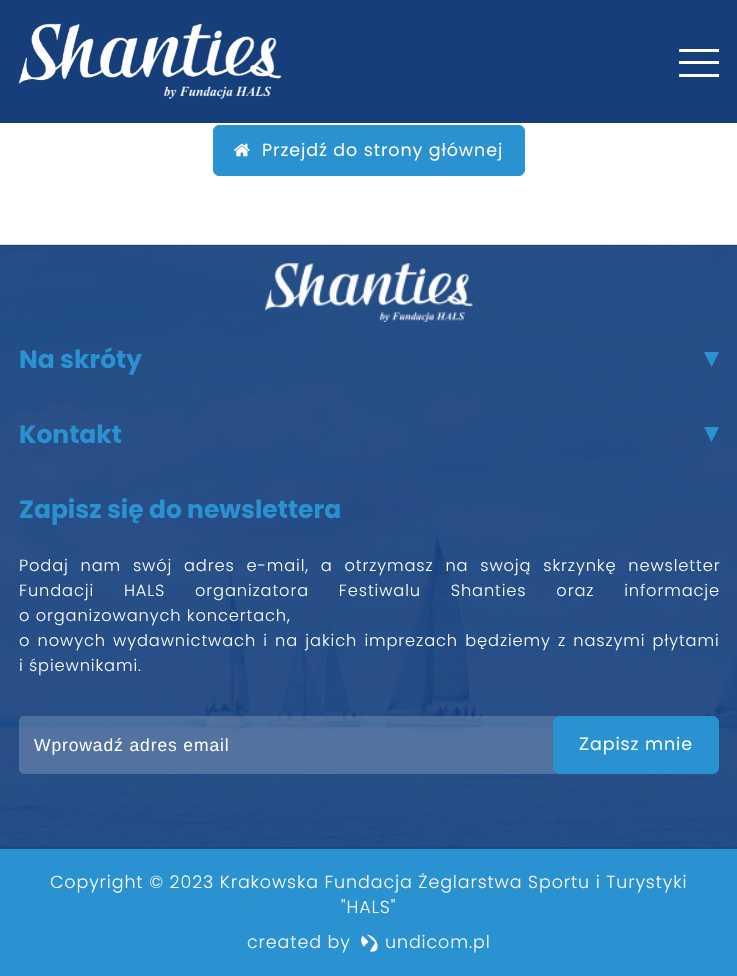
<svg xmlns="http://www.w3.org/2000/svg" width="737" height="976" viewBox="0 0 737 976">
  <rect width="100%" height="100%" fill="#ffffff"/>
  <rect x="0" y="848" width="737" height="1" fill="#2c5187"/>
  <rect x="0" y="0" width="737" height="123" fill="#153e7a"/>
  <image x="18" y="23" width="264" height="76" href="img1.png"/>
  <rect x="679" y="49" width="40" height="3" fill="#ffffff"/>
  <rect x="679" y="61" width="40" height="3" fill="#ffffff"/>
  <rect x="679" y="74" width="40" height="3" fill="#ffffff"/>
  <rect x="213.5" y="125.5" width="311" height="50" rx="5.5" fill="#2b92d1" stroke="#2b92d1"/>
  <image x="234" y="143" width="16" height="14" href="img2.png"/>
  <text x="262" y="156" font-family="Poppins" font-size="17.5" letter-spacing="0.88" fill="#ffffff">Przejdź do strony głównej</text>
  <image x="0" y="244" width="737" height="605" href="img3.png"/>
  <image x="265" y="263" width="208" height="59" href="img4.png"/>
  <text x="19" y="368" font-family="Poppins" font-size="25" font-weight="bold" fill="#2b92d1">Na skróty</text>
  <path d="M711.5 367L719 352H704Z" fill="#2b92d1"/>
  <text x="19" y="443" font-family="Poppins" font-size="25" font-weight="bold" fill="#2b92d1">Kontakt</text>
  <path d="M711.5 442L719 427H704Z" fill="#2b92d1"/>
  <text x="19" y="518" font-family="Poppins" font-size="25" font-weight="bold" fill="#2b92d1">Zapisz się do newslettera</text>
  <text x="19" y="571" word-spacing="6.5" font-family="Poppins" font-size="16.25" font-weight="300" letter-spacing="0.88" fill="#ffffff">Podaj nam swój adres e-mail, a otrzymasz na swoją skrzynkę newsletter</text>
  <text x="19" y="596" word-spacing="24.5" font-family="Poppins" font-size="16.25" font-weight="300" letter-spacing="0.88" fill="#ffffff">Fundacji HALS organizatora Festiwalu Shanties oraz informacje</text>
  <text x="19" y="621" font-family="Poppins" font-size="16.25" font-weight="300" letter-spacing="0.88" fill="#ffffff">o organizowanych koncertach,</text>
  <text x="19" y="646" word-spacing="1.9" font-family="Poppins" font-size="16.25" font-weight="300" letter-spacing="0.88" fill="#ffffff">o nowych wydawnictwach i na jakich imprezach będziemy z naszymi płytami</text>
  <text x="19" y="671" font-family="Poppins" font-size="16.25" font-weight="300" letter-spacing="0.88" fill="#ffffff">i śpiewnikami.</text>
  <rect x="19" y="716" width="540" height="58" rx="5" fill="#ffffff" fill-opacity="0.2"/>
  <text x="34" y="751" font-family="Liberation Sans" font-size="17.5" letter-spacing="0.88" fill="#ffffff">Wprowadź adres email</text>
  <rect x="553.5" y="716.5" width="165" height="57" rx="5.5" fill="#2b92d1" stroke="#2b92d1"/>
  <text x="579" y="750" font-family="Noto Sans" font-size="17.5" letter-spacing="0.88" fill="#ffffff">Z</text>
  <text x="590" y="750" font-family="Poppins" font-size="17.5" letter-spacing="0.88" fill="#ffffff">apisz mnie</text>
  <rect x="0" y="849" width="737" height="127" fill="#2b92d1"/>
  <text x="50" y="888" font-family="Poppins" font-size="17.5" font-weight="300" letter-spacing="0.88" fill="#ffffff">Copyright © 2023 Krakowska Fundacja Żeglarstwa Sportu i Turystyki</text>
  <text x="341" y="913" font-family="Poppins" font-size="17.5" font-weight="300" letter-spacing="0.88" fill="#ffffff">"HALS"</text>
  <text x="247" y="948" font-family="Poppins" font-size="17.5" font-weight="300" letter-spacing="0.88" fill="#ffffff">created by</text>
  <image x="361" y="934" width="17" height="18" href="img5.png"/>
  <text x="385" y="948" font-family="Poppins" font-size="17.5" font-weight="300" letter-spacing="0.88" fill="#ffffff">undicom.pl</text>
</svg>
